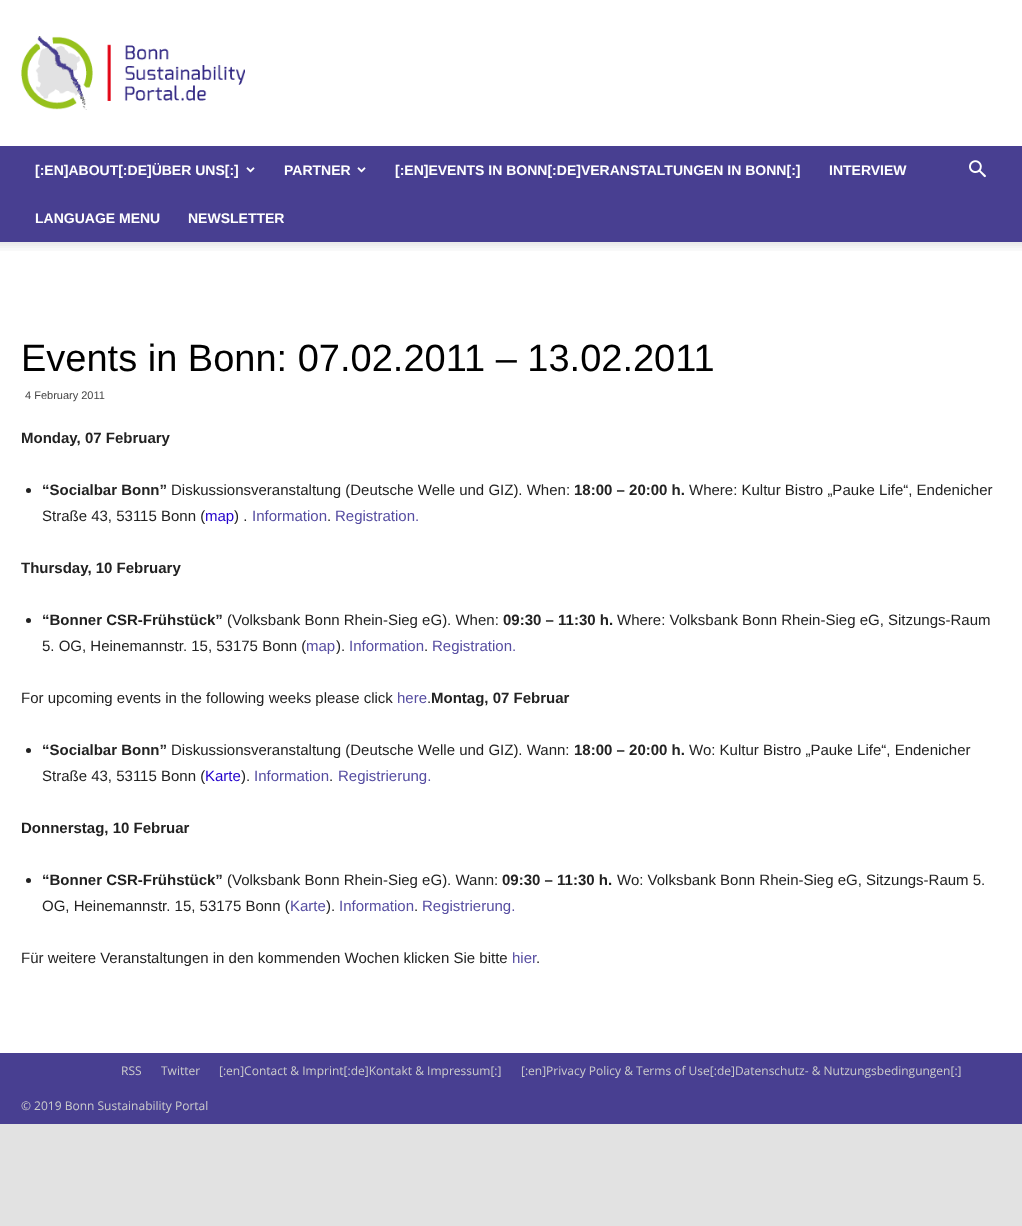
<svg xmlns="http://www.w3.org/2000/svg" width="1022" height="1226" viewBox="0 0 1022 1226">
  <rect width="100%" height="100%" fill="#e2e2e2"/>
  <rect x="0" y="0" width="1022" height="146" fill="#ffffff"/>
  <image x="21" y="36" width="224" height="74" href="img1.png"/>
  <rect x="0" y="146" width="1022" height="96" fill="#483f91"/>
  <text x="35" y="175" font-family="Liberation Sans" font-size="14" font-weight="bold" fill="#ffffff">[:EN]ABOUT[:DE]ÜBER UNS[:]</text>
  <image x="246" y="167" width="9" height="6" href="img2.png"/>
  <text x="284" y="175" font-family="Liberation Sans" font-size="14" font-weight="bold" fill="#ffffff">PARTNER</text>
  <image x="357" y="167" width="9" height="6" href="img2.png"/>
  <text x="395" y="175" font-family="Liberation Sans" font-size="14" font-weight="bold" fill="#ffffff">[:EN]EVENTS IN BONN[:DE]VERANSTALTUNGEN IN BONN[:]</text>
  <text x="829" y="175" font-family="Liberation Sans" font-size="14" font-weight="bold" fill="#ffffff">INTERVIEW</text>
  <text x="35" y="223" font-family="Liberation Sans" font-size="14" font-weight="bold" fill="#ffffff">LANGUAGE MENU</text>
  <text x="188" y="223" font-family="Liberation Sans" font-size="14" font-weight="bold" fill="#ffffff">NEWSLETTER</text>
  <image x="969" y="160" width="17" height="18" href="img3.png"/>
  <rect x="0" y="242" width="1022" height="811" fill="#ffffff"/>
  <image x="0" y="242" width="1022" height="9" href="img4.png"/>
  <text x="21" y="371" font-family="Liberation Sans" font-size="38" fill="#000000">Events in Bonn: 07.02.2011 – 13.02.2011</text>
  <text x="25" y="399" font-family="Liberation Sans" font-size="11" fill="#444444">4 February 2011</text>
  <text x="21" y="443" font-family="Liberation Sans" font-size="15" font-weight="bold" fill="#222222">Monday, 07 February</text>
  <circle cx="28.5" cy="490.5" r="2.5" fill="#222222"/>
  <text x="42" y="495" font-family="Liberation Sans" font-size="15" font-weight="bold" fill="#222222">“Socialbar Bonn”</text>
  <text x="171" y="495" font-family="Liberation Sans" font-size="15" fill="#222222">Diskussionsveranstaltung (Deutsche Welle und GIZ). When:</text>
  <text x="574" y="495" font-family="Liberation Sans" font-size="15" font-weight="bold" fill="#222222">18:00 – 20:00 h.</text>
  <text x="689" y="495" font-family="Liberation Sans" font-size="15" fill="#222222">Where: Kultur Bistro „Pauke Life“, Endenicher</text>
  <text x="42" y="521" font-family="Liberation Sans" font-size="15" fill="#222222">Straße 43, 53115 Bonn (</text>
  <text x="205" y="521" font-family="Liberation Sans" font-size="15" fill="#2200cc">map</text>
  <text x="234" y="521" font-family="Liberation Sans" font-size="15" fill="#222222">) .</text>
  <text x="252" y="521" font-family="Liberation Sans" font-size="15" fill="#564da1">Information</text>
  <text x="327" y="521" font-family="Liberation Sans" font-size="15" fill="#222222">.</text>
  <text x="335" y="521" font-family="Liberation Sans" font-size="15" fill="#564da1">Registration.</text>
  <text x="21" y="573" font-family="Liberation Sans" font-size="15" font-weight="bold" fill="#222222">Thursday, 10 February</text>
  <circle cx="28.5" cy="620.5" r="2.5" fill="#222222"/>
  <text x="42" y="625" font-family="Liberation Sans" font-size="15" font-weight="bold" fill="#222222">“Bonner CSR-Frühstück”</text>
  <text x="227" y="625" font-family="Liberation Sans" font-size="15" fill="#222222">(Volksbank Bonn Rhein-Sieg eG). When:</text>
  <text x="503" y="625" font-family="Liberation Sans" font-size="15" font-weight="bold" fill="#222222">09:30 – 11:30 h.</text>
  <text x="617" y="625" font-family="Liberation Sans" font-size="15" fill="#222222">Where: Volksbank Bonn Rhein-Sieg eG, Sitzungs-Raum</text>
  <text x="42" y="651" font-family="Liberation Sans" font-size="15" fill="#222222">5. OG, Heinemannstr. 15, 53175 Bonn (</text>
  <text x="306" y="651" font-family="Liberation Sans" font-size="15" fill="#564da1">map</text>
  <text x="336" y="651" font-family="Liberation Sans" font-size="15" fill="#222222">).</text>
  <text x="349" y="651" font-family="Liberation Sans" font-size="15" fill="#564da1">Information</text>
  <text x="424" y="651" font-family="Liberation Sans" font-size="15" fill="#222222">.</text>
  <text x="432" y="651" font-family="Liberation Sans" font-size="15" fill="#564da1">Registration.</text>
  <text x="21" y="703" font-family="Liberation Sans" font-size="15" fill="#222222">For upcoming events in the following weeks please click</text>
  <text x="397" y="703" font-family="Liberation Sans" font-size="15" fill="#564da1">here</text>
  <text x="427" y="703" font-family="Liberation Sans" font-size="15" fill="#222222">.</text>
  <text x="431" y="703" font-family="Liberation Sans" font-size="15" font-weight="bold" fill="#222222">Montag, 07 Februar</text>
  <circle cx="28.5" cy="750.5" r="2.5" fill="#222222"/>
  <text x="42" y="755" font-family="Liberation Sans" font-size="15" font-weight="bold" fill="#222222">“Socialbar Bonn”</text>
  <text x="171" y="755" font-family="Liberation Sans" font-size="15" fill="#222222">Diskussionsveranstaltung (Deutsche Welle und GIZ). Wann:</text>
  <text x="574" y="755" font-family="Liberation Sans" font-size="15" font-weight="bold" fill="#222222">18:00 – 20:00 h.</text>
  <text x="689" y="755" font-family="Liberation Sans" font-size="15" fill="#222222">Wo: Kultur Bistro „Pauke Life“, Endenicher</text>
  <text x="42" y="781" font-family="Liberation Sans" font-size="15" fill="#222222">Straße 43, 53115 Bonn (</text>
  <text x="205" y="781" font-family="Liberation Sans" font-size="15" fill="#2200cc">Karte</text>
  <text x="241" y="781" font-family="Liberation Sans" font-size="15" fill="#222222">).</text>
  <text x="254" y="781" font-family="Liberation Sans" font-size="15" fill="#564da1">Information</text>
  <text x="329" y="781" font-family="Liberation Sans" font-size="15" fill="#222222">.</text>
  <text x="338" y="781" font-family="Liberation Sans" font-size="15" fill="#564da1">Registrierung.</text>
  <text x="21" y="833" font-family="Liberation Sans" font-size="15" font-weight="bold" fill="#222222">Donnerstag, 10 Februar</text>
  <circle cx="28.5" cy="880.5" r="2.5" fill="#222222"/>
  <text x="42" y="885" font-family="Liberation Sans" font-size="15" font-weight="bold" fill="#222222">“Bonner CSR-Frühstück”</text>
  <text x="227" y="885" font-family="Liberation Sans" font-size="15" fill="#222222">(Volksbank Bonn Rhein-Sieg eG). Wann:</text>
  <text x="502" y="885" font-family="Liberation Sans" font-size="15" font-weight="bold" fill="#222222">09:30 – 11:30 h.</text>
  <text x="617" y="885" font-family="Liberation Sans" font-size="15" fill="#222222">Wo: Volksbank Bonn Rhein-Sieg eG, Sitzungs-Raum 5.</text>
  <text x="42" y="911" font-family="Liberation Sans" font-size="15" fill="#222222">OG, Heinemannstr. 15, 53175 Bonn (</text>
  <text x="290" y="911" font-family="Liberation Sans" font-size="15" fill="#564da1">Karte</text>
  <text x="326" y="911" font-family="Liberation Sans" font-size="15" fill="#222222">).</text>
  <text x="339" y="911" font-family="Liberation Sans" font-size="15" fill="#564da1">Information</text>
  <text x="414" y="911" font-family="Liberation Sans" font-size="15" fill="#222222">.</text>
  <text x="422" y="911" font-family="Liberation Sans" font-size="15" fill="#564da1">Registrierung.</text>
  <text x="21" y="963" font-family="Liberation Sans" font-size="15" fill="#222222">Für weitere Veranstaltungen in den kommenden Wochen klicken Sie bitte</text>
  <text x="512" y="963" font-family="Liberation Sans" font-size="15" fill="#564da1">hier</text>
  <text x="536" y="963" font-family="Liberation Sans" font-size="15" fill="#222222">.</text>
  <rect x="0" y="1053" width="1022" height="71" fill="#483f91"/>
  <text x="121" y="1075" font-family="Open Sans" font-size="12" fill="#cccccc">RSS</text>
  <text x="161" y="1075" font-family="Open Sans" font-size="12" fill="#cccccc">Twitter</text>
  <text x="219" y="1075" font-family="Open Sans" font-size="12" fill="#cccccc">[:en]Contact &amp; Imprint[:de]Kontakt &amp; Impressum[:]</text>
  <text x="521" y="1075" font-family="Open Sans" font-size="12" fill="#cccccc">[:en]Privacy Policy &amp; Terms of Use[:de]Datenschutz- &amp; Nutzungsbedingungen[:]</text>
  <text x="21" y="1110" font-family="Open Sans" font-size="12" fill="#cccccc">© 2019 Bonn Sustainability Portal</text>
</svg>
